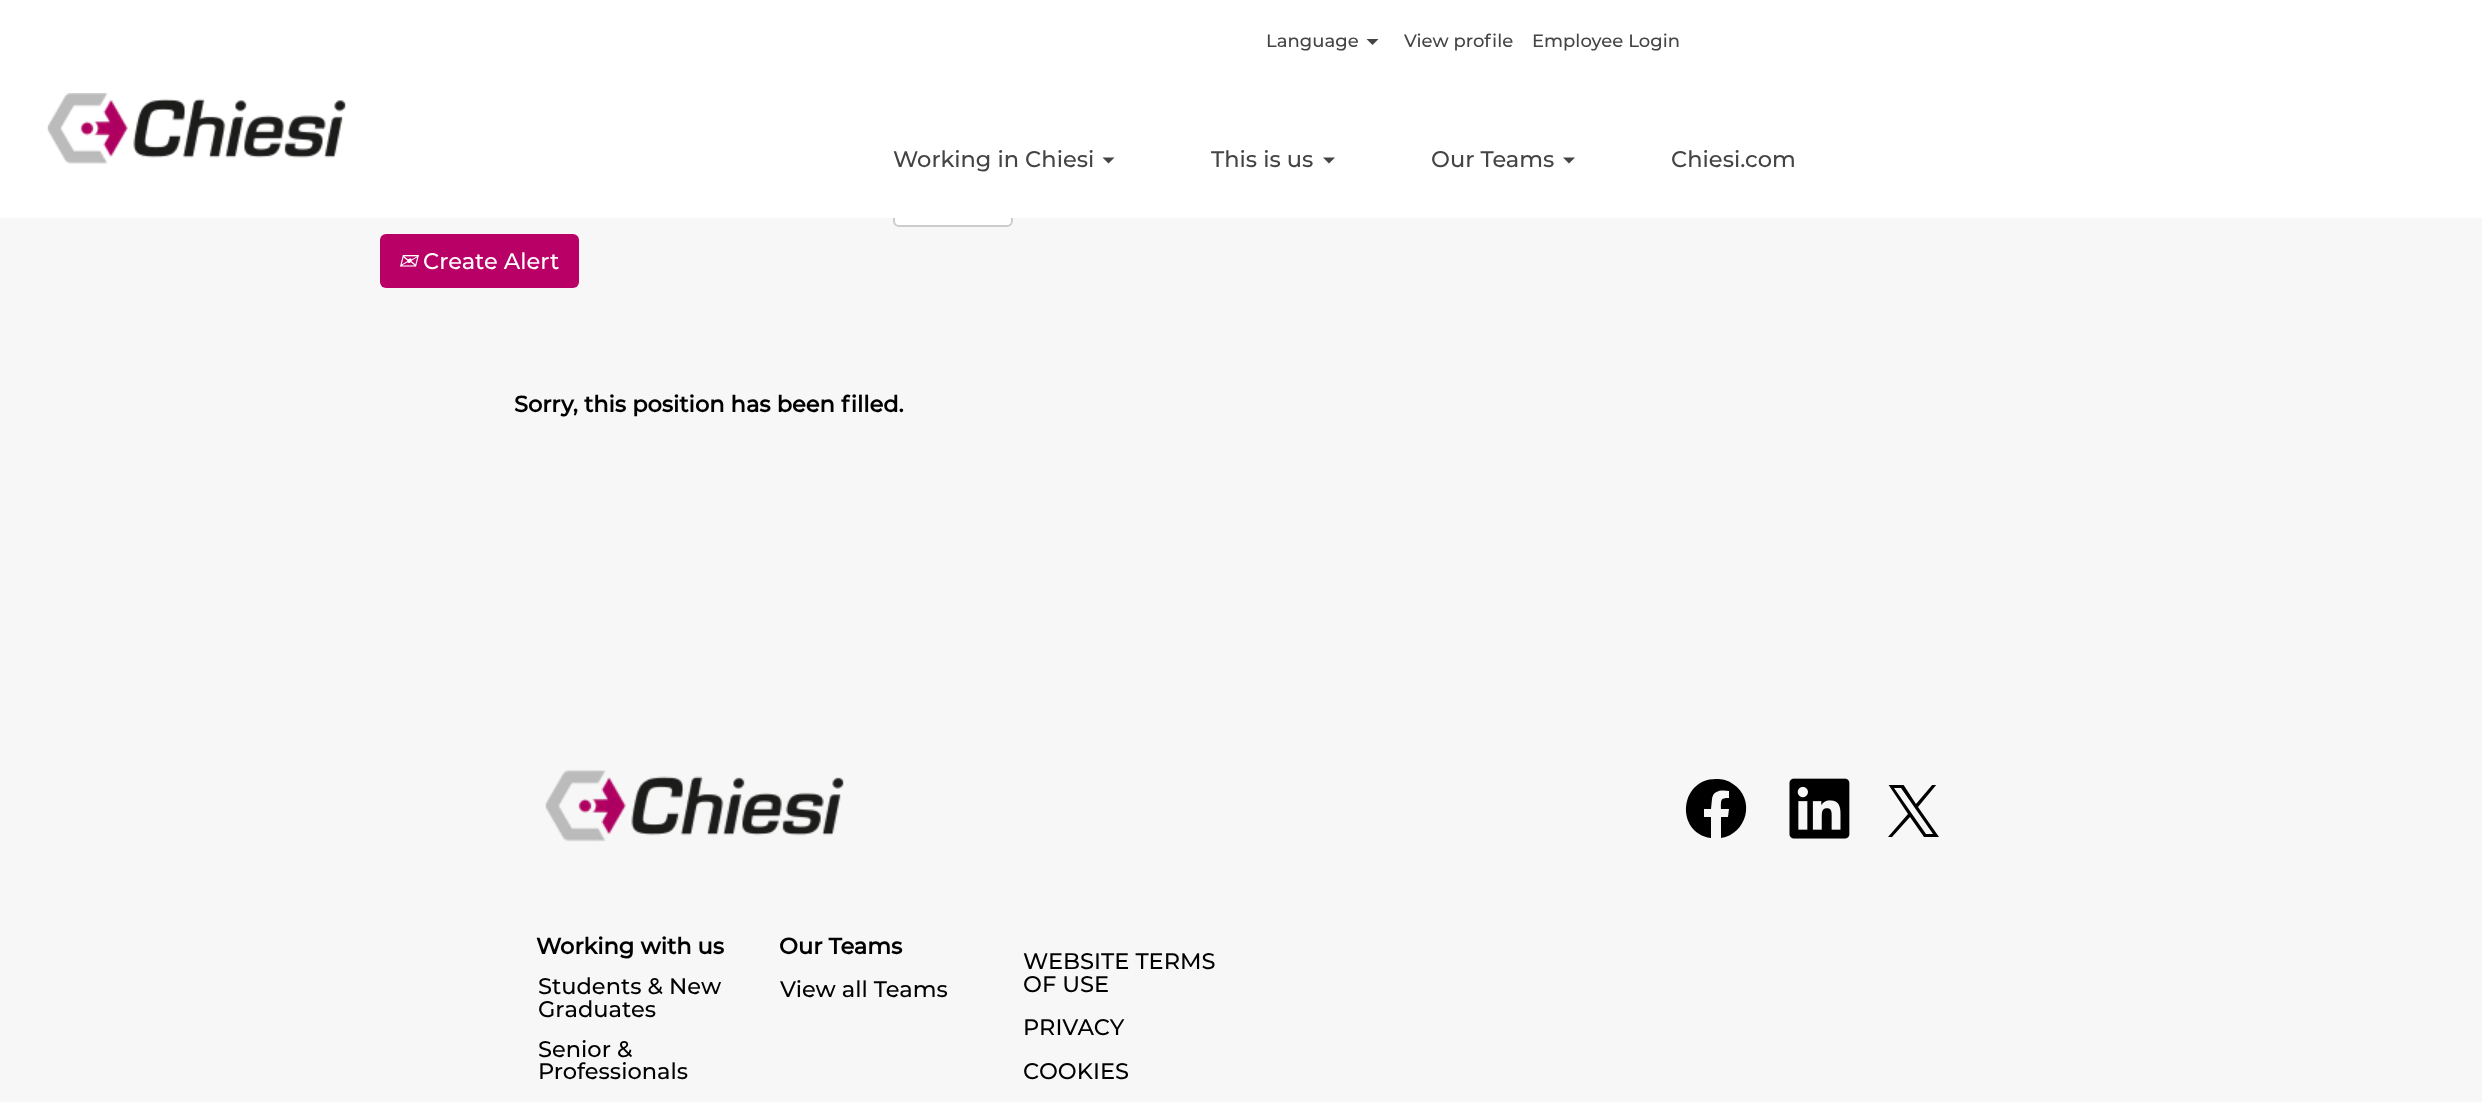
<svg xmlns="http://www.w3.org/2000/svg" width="2482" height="1102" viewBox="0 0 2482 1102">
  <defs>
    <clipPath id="clip1"><rect x="1887" y="785" width="53" height="52"/></clipPath>
  </defs>
  <rect width="100%" height="100%" fill="#f7f7f7"/>
  <rect x="894" y="189" width="118" height="37" rx="5" fill="#ffffff" stroke="#cccccc" stroke-width="2"/>
  <rect x="0" y="0" width="2482" height="218" fill="#ffffff"/>
  <text x="1266" y="47" font-family="Montserrat" font-size="18" font-weight="500" fill="#444444">Language</text>
  <path d="M1366.5 39H1378.5L1372.5 45Z" fill="#444444"/>
  <text x="1404" y="47" font-family="Montserrat" font-size="18" font-weight="500" fill="#444444">View profile</text>
  <text x="1532" y="47" font-family="Montserrat" font-size="18" font-weight="500" fill="#444444">Employee Login</text>
  <image x="46" y="93" width="300" height="71" href="img1.png"/>
  <text x="893" y="167" font-family="Montserrat" font-size="22.5" font-weight="500" fill="#444444">Working in Chiesi</text>
  <path d="M1102.5 157.5H1114.5L1108.5 163.5Z" fill="#444444"/>
  <text x="1211" y="167" font-family="Montserrat" font-size="22.5" font-weight="500" fill="#444444">This is us</text>
  <path d="M1323 157.5H1335L1329 163.5Z" fill="#444444"/>
  <text x="1431" y="167" font-family="Montserrat" font-size="22.5" font-weight="500" fill="#444444">Our Teams</text>
  <path d="M1563 157.5H1575L1569 163.5Z" fill="#444444"/>
  <text x="1671" y="167" font-family="Montserrat" font-size="22.5" font-weight="500" fill="#444444">Chiesi.com</text>
  <rect x="380" y="234" width="199" height="54" rx="6" fill="#b90066"/>
  <text x="398" y="269" font-family="DejaVu Sans" font-size="22.5" font-style="italic" fill="#ffffff">✉</text>
  <text x="423" y="269" font-family="Montserrat" font-size="22.5" font-weight="500" fill="#ffffff">Create Alert</text>
  <text x="514" y="412" font-family="Montserrat" font-size="22.5" font-weight="bold" fill="#000000">Sorry, this position has been filled.</text>
  <image x="545" y="770" width="299" height="72" href="img2.png"/>
  <path d="M1716 779C1679 779 1675 833 1711 838V817H1704V809H1711L1712 799C1713 790 1722 790 1729 791V798C1720 798 1721 800 1721 809H1729L1728 817H1721V838C1747 834 1756 799 1733 784C1728 780 1722 779 1716 779Z" fill="#000000"/>
  <image x="1789" y="778" width="61" height="61" href="img3.png"/>
  <g clip-path="url(#clip1)">
    <path d="M1918 807L1937 784H1933L1916 804L1903 784H1888L1908 814L1888 837H1892L1910 817L1924 837H1939ZM1912 814L1894 788H1901L1933 834H1926Z" fill="#000000"/>
  </g>
  <text x="536" y="954" font-family="Montserrat" font-size="22.5" font-weight="bold" fill="#000000">Working with us</text>
  <text x="538" y="994" font-family="Montserrat" font-size="22.5" font-weight="500" fill="#000000">Students &amp; New</text>
  <text x="538" y="1017" font-family="Montserrat" font-size="22.5" font-weight="500" fill="#000000">Graduates</text>
  <text x="538" y="1057" font-family="Montserrat" font-size="22.5" font-weight="500" fill="#000000">Senior &amp;</text>
  <text x="538" y="1079" font-family="Montserrat" font-size="22.5" font-weight="500" fill="#000000">Professionals</text>
  <text x="779" y="954" font-family="Montserrat" font-size="22.5" font-weight="bold" fill="#000000">Our Teams</text>
  <text x="780" y="997" font-family="Montserrat" font-size="22.5" font-weight="500" fill="#000000">View all Teams</text>
  <text x="1023" y="969" font-family="Montserrat" font-size="22.5" font-weight="500" fill="#000000">WEBSITE TERMS</text>
  <text x="1023" y="992" font-family="Montserrat" font-size="22.5" font-weight="500" fill="#000000">OF USE</text>
  <text x="1023" y="1035" font-family="Montserrat" font-size="22.5" font-weight="500" fill="#000000">PRIVACY</text>
  <text x="1023" y="1079" font-family="Montserrat" font-size="22.5" font-weight="500" fill="#000000">COOKIES</text>
</svg>
